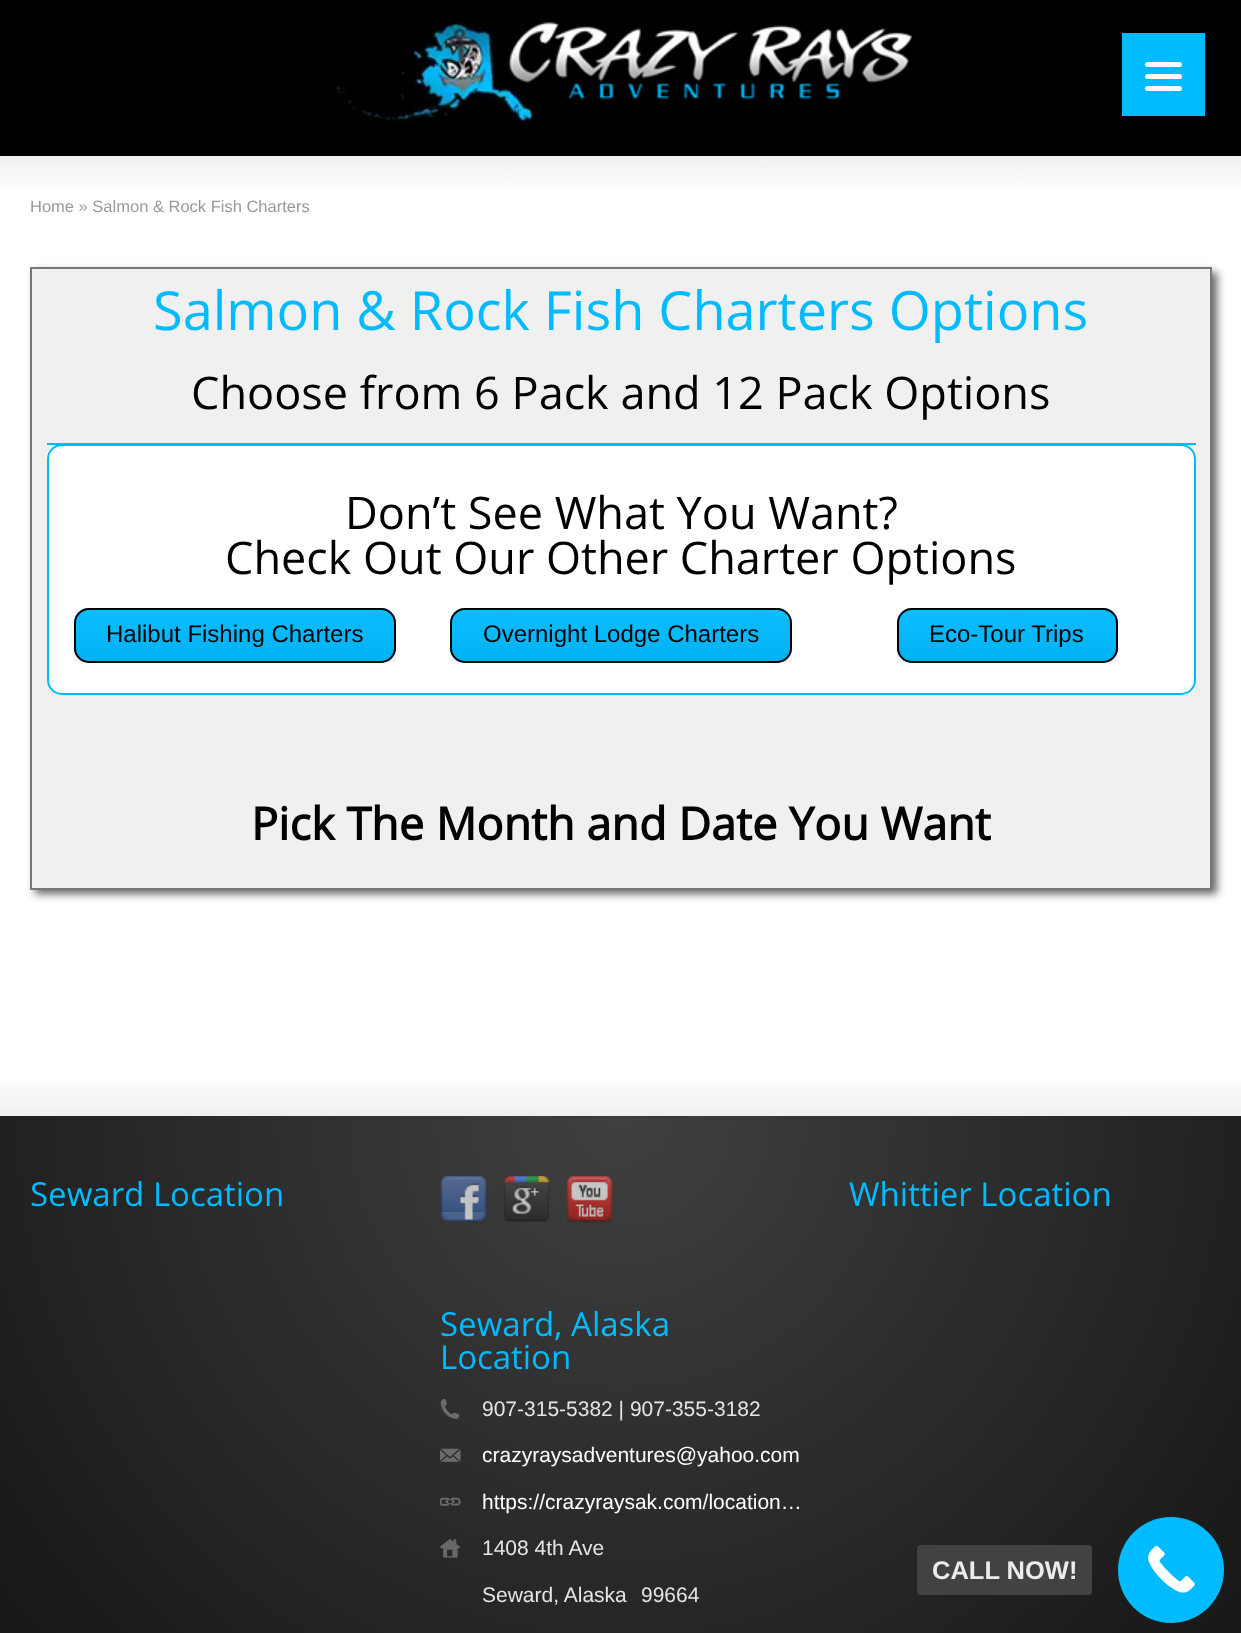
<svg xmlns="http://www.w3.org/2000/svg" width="1241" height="1633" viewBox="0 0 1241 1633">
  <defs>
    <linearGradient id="g1" gradientUnits="userSpaceOnUse" x1="621" y1="156" x2="621" y2="197"><stop offset="0" stop-color="#f0f0f0"/><stop offset="1" stop-color="#ffffff"/></linearGradient>
    <filter id="blur1" x="-50%" y="-200%" width="200%" height="500%"><feGaussianBlur stdDeviation="4"/></filter>
    <linearGradient id="g2" gradientUnits="userSpaceOnUse" x1="235" y1="609" x2="235" y2="662"><stop offset="0" stop-color="#ffffff" stop-opacity="0.05"/><stop offset="1" stop-color="#000000" stop-opacity="0.05"/></linearGradient>
    <linearGradient id="g3" gradientUnits="userSpaceOnUse" x1="621" y1="609" x2="621" y2="662"><stop offset="0" stop-color="#ffffff" stop-opacity="0.05"/><stop offset="1" stop-color="#000000" stop-opacity="0.05"/></linearGradient>
    <linearGradient id="g4" gradientUnits="userSpaceOnUse" x1="1007" y1="609" x2="1007" y2="662"><stop offset="0" stop-color="#ffffff" stop-opacity="0.05"/><stop offset="1" stop-color="#000000" stop-opacity="0.05"/></linearGradient>
    <linearGradient id="g5" gradientUnits="userSpaceOnUse" x1="621" y1="1071" x2="621" y2="1116"><stop offset="0" stop-color="#ffffff"/><stop offset="1" stop-color="#f0f0f0"/></linearGradient>
    <radialGradient id="g6" gradientUnits="userSpaceOnUse" cx="621" cy="1116" r="1260"><stop offset="0" stop-color="#404040"/><stop offset="1" stop-color="#000000"/></radialGradient>
    <radialGradient id="g7" gradientUnits="userSpaceOnUse" cx="621" cy="1116" r="1260"><stop offset="0" stop-color="#3c3c3c"/><stop offset="1" stop-color="#000000"/></radialGradient>
  </defs>
  <rect width="100%" height="100%" fill="#ffffff"/>
  <rect x="0" y="0" width="1241" height="156" fill="#000000"/>
  <rect x="1122" y="33" width="83" height="83" fill="#00bbff"/>
  <rect x="1145" y="74" width="37" height="5" rx="2.5" fill="#ffffff"/>
  <rect x="1145" y="62" width="37" height="5" rx="2.5" fill="#ffffff"/>
  <rect x="1145" y="86" width="37" height="5" rx="2.5" fill="#ffffff"/>
  <image x="336" y="15" width="576" height="108" href="img1.png"/>
  <rect x="0" y="156" width="1241" height="34" fill="url(#g1)"/>
  <text x="30" y="212" font-family="Liberation Sans" font-size="16.5" fill="#999999">Home » Salmon &amp; Rock Fish Charters</text>
  <rect x="35" y="272" width="1182" height="622" fill="#000000" fill-opacity="0.6" filter="url(#blur1)"/>
  <rect x="31" y="268" width="1180" height="621" fill="#f0f0f0" stroke="#777777" stroke-width="2"/>
  <text x="153" y="330" font-family="Open Sans" font-size="54" fill="#00bbff">Salmon &amp; Rock Fish Charters Options</text>
  <text x="191" y="409" font-family="Open Sans" font-size="45" fill="#000000">Choose from 6 Pack and 12 Pack Options</text>
  <rect x="48" y="445" width="1147" height="249" rx="14" fill="#ffffff" stroke="#00bbff" stroke-width="2"/>
  <rect x="47" y="443" width="1149" height="2" fill="#00bbff"/>
  <text x="345" y="529" font-family="Open Sans" font-size="45" fill="#000000">Don’t See What You Want?</text>
  <text x="225" y="574" font-family="Open Sans" font-size="45" fill="#000000">Check Out Our Other Charter Options</text>
  <rect x="74" y="608" width="322" height="55" rx="15" fill="#00bbff"/>
  <rect x="74" y="609" width="322" height="53" fill="url(#g2)"/>
  <rect x="75" y="609" width="320" height="53" rx="14" fill="none" stroke="#000000" stroke-width="2"/>
  <text x="106" y="642" font-family="Liberation Sans" font-size="24" fill="#000000">Halibut Fishing Charters</text>
  <rect x="450" y="608" width="342" height="55" rx="15" fill="#00bbff"/>
  <rect x="450" y="609" width="342" height="53" fill="url(#g3)"/>
  <rect x="451" y="609" width="340" height="53" rx="14" fill="none" stroke="#000000" stroke-width="2"/>
  <text x="483" y="642" font-family="Liberation Sans" font-size="24" fill="#000000">Overnight Lodge Charters</text>
  <rect x="897" y="608" width="221" height="55" rx="15" fill="#00bbff"/>
  <rect x="897" y="609" width="221" height="53" fill="url(#g4)"/>
  <rect x="898" y="609" width="219" height="53" rx="14" fill="none" stroke="#000000" stroke-width="2"/>
  <text x="929" y="642" font-family="Liberation Sans" font-size="24" fill="#000000">Eco-Tour Trips</text>
  <text x="251" y="840" font-family="Open Sans" font-size="45" font-weight="bold" fill="#000000">Pick The Month and Date You Want</text>
  <rect x="0" y="1079" width="1241" height="37" fill="url(#g5)"/>
  <rect x="0" y="1116" width="1241" height="517" fill="url(#g6)"/>
  <rect x="552" y="1116" width="138" height="3" fill="url(#g7)"/>
  <text x="30" y="1206" font-family="Open Sans" font-size="33" fill="#00bbff">Seward Location</text>
  <text x="849" y="1206" font-family="Open Sans" font-size="33" fill="#00bbff">Whittier Location</text>
  <image x="440" y="1176" width="47" height="46" href="img2.png"/>
  <image x="503" y="1176" width="47" height="46" href="img3.png"/>
  <image x="566" y="1176" width="47" height="47" href="img4.png"/>
  <text x="440" y="1336" font-family="Open Sans" font-size="33" fill="#00bbff">Seward, Alaska</text>
  <text x="440" y="1369" font-family="Open Sans" font-size="33" fill="#00bbff">Location</text>
  <image x="440" y="1398" width="20" height="21" href="img5.png"/>
  <text x="482" y="1416" font-family="Liberation Sans" font-size="21" fill="#e5e5e5">907-315-5382 | 907-355-3182</text>
  <image x="440" y="1448" width="21" height="14" href="img6.png"/>
  <text x="482" y="1462" font-family="Liberation Sans" font-size="21" fill="#ffffff">crazyraysadventures@yahoo.com</text>
  <image x="440" y="1497" width="21" height="9" href="img7.png"/>
  <text x="482" y="1509" font-family="Liberation Sans" font-size="21" fill="#ffffff">https://crazyraysak.com/location…</text>
  <image x="440" y="1539" width="20" height="19" href="img8.png"/>
  <text x="482" y="1555" font-family="Liberation Sans" font-size="21" fill="#e5e5e5">1408 4th Ave</text>
  <text x="482" y="1602" font-family="Liberation Sans" font-size="21" fill="#e5e5e5">Seward, Alaska</text>
  <text x="641" y="1602" font-family="Liberation Sans" font-size="21" fill="#e5e5e5">99664</text>
  <circle cx="1171" cy="1570" r="53" fill="#00bbff"/>
  <image x="1148" y="1545" width="47" height="48" href="img9.png"/>
  <rect x="917" y="1545" width="175" height="50" rx="4" fill="#464646" fill-opacity="0.9"/>
  <text x="932" y="1579" font-family="Liberation Sans" font-size="25.5" font-weight="bold" fill="#ececec">CALL NOW!</text>
</svg>
